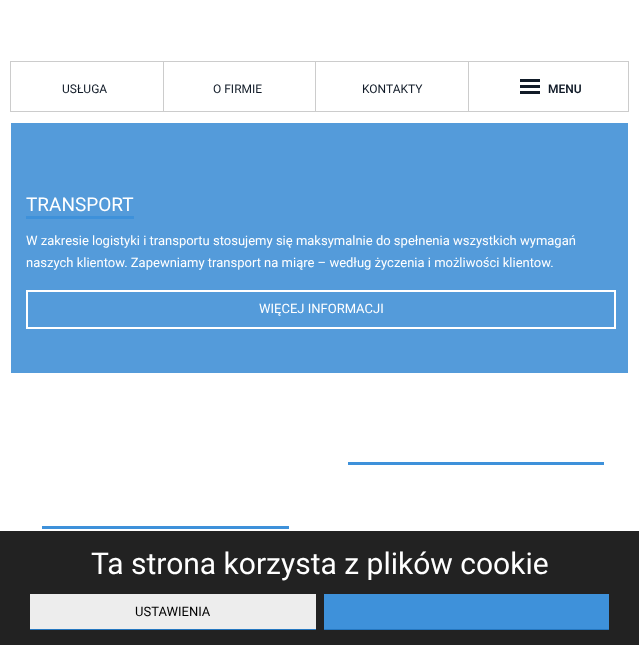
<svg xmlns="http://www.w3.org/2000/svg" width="639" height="645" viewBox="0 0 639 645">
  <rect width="100%" height="100%" fill="#ffffff"/>
  <rect x="10.5" y="61.5" width="618" height="50" fill="none" stroke="#cccccc"/>
  <rect x="163" y="62" width="1" height="49" fill="#cccccc"/>
  <text x="62" y="93" font-family="Roboto" font-size="12" fill="#111b28">USŁUGA</text>
  <rect x="315" y="62" width="1" height="49" fill="#cccccc"/>
  <text x="213" y="93" font-family="Roboto" font-size="12" fill="#111b28">O FIRMIE</text>
  <rect x="468" y="62" width="1" height="49" fill="#cccccc"/>
  <text x="362" y="93" font-family="Roboto" font-size="12" fill="#111b28">KONTAKTY</text>
  <rect x="520" y="79" width="20" height="3" fill="#111b28"/>
  <rect x="520" y="85" width="20" height="3" fill="#111b28"/>
  <text x="548" y="93" font-family="Roboto" font-size="12" font-weight="600" fill="#111b28">MENU</text>
  <rect x="520" y="91" width="20" height="3" fill="#111b28"/>
  <rect x="11" y="123" width="617" height="250" fill="#549bda"/>
  <text x="26" y="211" font-family="Roboto" font-size="19" fill="#ffffff">TRANSPORT</text>
  <rect x="26" y="216" width="108" height="3" fill="#3e91da"/>
  <text x="26" y="245" font-family="Roboto" font-size="13" fill="#ffffff">W zakresie logistyki i transportu stosujemy się maksymalnie do spełnenia wszystkich wymagań</text>
  <text x="26" y="267" font-family="Roboto" font-size="13" fill="#ffffff">naszych klientow. Zapewniamy transport na miąre – według życzenia i możliwości klientow.</text>
  <rect x="27" y="291" width="588" height="37" fill="none" stroke="#ffffff" stroke-width="2"/>
  <text x="259" y="313" font-family="Roboto" font-size="13" fill="#ffffff">WIĘCEJ INFORMACJI</text>
  <rect x="348" y="462" width="256" height="3" fill="#3e91da"/>
  <rect x="42" y="526" width="247" height="3" fill="#3e91da"/>
  <rect x="0" y="531" width="639" height="114" fill="#222222"/>
  <text x="91" y="574" font-family="Roboto" font-size="30" fill="#ffffff">Ta strona korzysta z plików cookie</text>
  <rect x="30" y="594" width="286" height="35" fill="#ededed"/>
  <rect x="30" y="629" width="286" height="1" fill="#2577c0"/>
  <text x="135" y="616" font-family="Roboto" font-size="13" fill="#000000">USTAWIENIA</text>
  <rect x="324" y="594" width="285" height="35" fill="#3e91da"/>
  <rect x="324" y="629" width="285" height="1" fill="#2577c0"/>
</svg>
